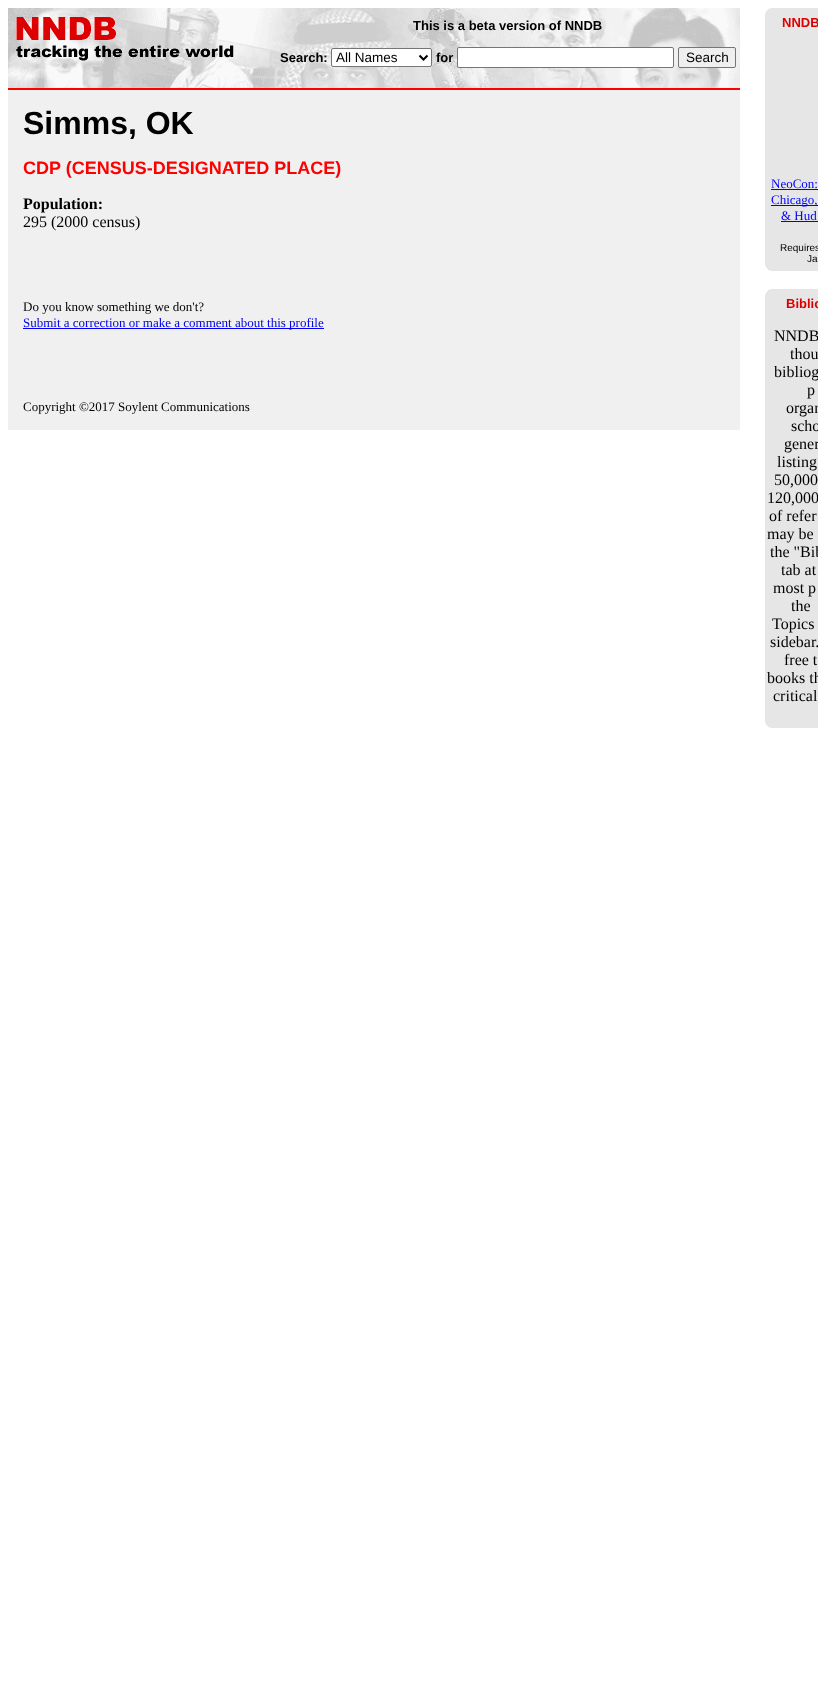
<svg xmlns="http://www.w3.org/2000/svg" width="818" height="1708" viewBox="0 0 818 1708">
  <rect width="100%" height="100%" fill="#ffffff"/>
  <image x="8" y="8" width="732" height="80" href="img1.png"/>
  <image x="16" y="17" width="218" height="44" href="img2.png"/>
  <text x="413" y="30" font-family="Liberation Sans" font-size="13" font-weight="bold" fill="#000000">This is a beta version of NNDB</text>
  <text x="280" y="62" font-family="Liberation Sans" font-size="13" font-weight="bold" fill="#000000">Search:</text>
  <rect x="331.5" y="48.5" width="100" height="18" rx="1.5" fill="#ffffff" stroke="#767676"/>
  <path d="M419.5 55.5L423.5 59.5L427.5 55.5" fill="none" stroke="#000000" stroke-width="2"/>
  <text x="336" y="62" font-family="Liberation Sans" font-size="13.5" fill="#000000">All Names</text>
  <text x="436" y="62" font-family="Liberation Sans" font-size="13" font-weight="bold" fill="#000000">for</text>
  <rect x="457.5" y="47.5" width="216" height="20" rx="1.5" fill="#ffffff" stroke="#767676"/>
  <rect x="678.5" y="47.5" width="57" height="20" rx="1.5" fill="#efefef" stroke="#767676"/>
  <text x="686" y="62" font-family="Liberation Sans" font-size="13.5" fill="#000000">Search</text>
  <rect x="8" y="88" width="732" height="2" fill="#ff0000"/>
  <rect x="8" y="90" width="732" height="340" fill="#f0f0f0"/>
  <text x="23" y="134" font-family="Liberation Sans" font-size="32" font-weight="bold" fill="#000000">Simms, OK</text>
  <text x="23" y="174" font-family="Liberation Sans" font-size="18" font-weight="bold" fill="#ff0000">CDP (CENSUS-DESIGNATED PLACE)</text>
  <text x="23" y="209" font-family="Liberation Serif" font-size="16" font-weight="bold" fill="#000000">Population:</text>
  <text x="23" y="227" font-family="Liberation Serif" font-size="16" fill="#000000">295 (2000 census)</text>
  <text x="23" y="311" font-family="Liberation Serif" font-size="13" fill="#000000">Do you know something we don't?</text>
  <rect x="23" y="328" width="301" height="1" fill="#0000ee"/>
  <text x="23" y="327" font-family="Liberation Serif" font-size="13" fill="#0000ee">Submit a correction or make a comment about this profile</text>
  <text x="23" y="411" font-family="Liberation Serif" font-size="13" fill="#000000">Copyright ©2017 Soylent Communications</text>
  <rect x="770" y="8" width="48" height="1" fill="#e6e6e6"/>
  <rect x="768" y="9" width="50" height="1" fill="#e6e6e6"/>
  <rect x="767" y="10" width="51" height="1" fill="#e6e6e6"/>
  <rect x="766" y="11" width="52" height="2" fill="#e6e6e6"/>
  <rect x="765" y="13" width="53" height="253" fill="#e6e6e6"/>
  <text x="782" y="27" font-family="Liberation Sans" font-size="13" font-weight="bold" fill="#dd0000">NNDB</text>
  <text x="771" y="188" font-family="Liberation Serif" font-size="13" fill="#0000ff">NeoCon:</text>
  <rect x="771" y="189" width="47" height="1" fill="#0000ff"/>
  <rect x="771" y="205" width="47" height="1" fill="#0000ff"/>
  <text x="771" y="204" font-family="Liberation Serif" font-size="13" fill="#0000ff">Chicago,</text>
  <text x="781" y="220" font-family="Liberation Serif" font-size="13" fill="#0000ff">&amp; Hud</text>
  <rect x="781" y="221" width="37" height="1" fill="#0000ff"/>
  <text x="780" y="251" font-family="Liberation Sans" font-size="10" fill="#000000">Requires</text>
  <text x="807" y="262" font-family="Liberation Sans" font-size="10" fill="#000000">Ja</text>
  <rect x="766" y="266" width="52" height="2" fill="#e6e6e6"/>
  <rect x="767" y="268" width="51" height="1" fill="#e6e6e6"/>
  <rect x="768" y="269" width="50" height="1" fill="#e6e6e6"/>
  <rect x="770" y="270" width="48" height="1" fill="#e6e6e6"/>
  <rect x="770" y="289" width="48" height="1" fill="#e6e6e6"/>
  <rect x="768" y="290" width="50" height="1" fill="#e6e6e6"/>
  <rect x="767" y="291" width="51" height="1" fill="#e6e6e6"/>
  <rect x="766" y="292" width="52" height="2" fill="#e6e6e6"/>
  <rect x="765" y="294" width="53" height="429" fill="#e6e6e6"/>
  <text x="786" y="308" font-family="Liberation Sans" font-size="13" font-weight="bold" fill="#dd0000">Biblio</text>
  <text x="774" y="341" font-family="Liberation Serif" font-size="16" fill="#000000">NNDB</text>
  <text x="790" y="359" font-family="Liberation Serif" font-size="16" fill="#000000">thou</text>
  <text x="774" y="377" font-family="Liberation Serif" font-size="16" fill="#000000">bibliog</text>
  <text x="807" y="395" font-family="Liberation Serif" font-size="16" fill="#000000">p</text>
  <text x="786" y="413" font-family="Liberation Serif" font-size="16" fill="#000000">organ</text>
  <text x="791" y="431" font-family="Liberation Serif" font-size="16" fill="#000000">scho</text>
  <text x="784" y="449" font-family="Liberation Serif" font-size="16" fill="#000000">gener</text>
  <text x="777" y="467" font-family="Liberation Serif" font-size="16" fill="#000000">listing</text>
  <text x="774" y="485" font-family="Liberation Serif" font-size="16" fill="#000000">50,000</text>
  <text x="767" y="503" font-family="Liberation Serif" font-size="16" fill="#000000">120,000</text>
  <text x="769" y="521" font-family="Liberation Serif" font-size="16" fill="#000000">of refer</text>
  <text x="767" y="539" font-family="Liberation Serif" font-size="16" fill="#000000">may be</text>
  <text x="770" y="557" font-family="Liberation Serif" font-size="16" fill="#000000">the "Bib</text>
  <text x="781" y="575" font-family="Liberation Serif" font-size="16" fill="#000000">tab at</text>
  <text x="773" y="593" font-family="Liberation Serif" font-size="16" fill="#000000">most p</text>
  <text x="791" y="611" font-family="Liberation Serif" font-size="16" fill="#000000">the</text>
  <text x="772" y="629" font-family="Liberation Serif" font-size="16" fill="#000000">Topics</text>
  <text x="770" y="647" font-family="Liberation Serif" font-size="16" fill="#000000">sidebar.</text>
  <text x="784" y="665" font-family="Liberation Serif" font-size="16" fill="#000000">free t</text>
  <text x="767" y="683" font-family="Liberation Serif" font-size="16" fill="#000000">books th</text>
  <text x="773" y="701" font-family="Liberation Serif" font-size="16" fill="#000000">critical</text>
  <rect x="766" y="723" width="52" height="2" fill="#e6e6e6"/>
  <rect x="767" y="725" width="51" height="1" fill="#e6e6e6"/>
  <rect x="768" y="726" width="50" height="1" fill="#e6e6e6"/>
  <rect x="770" y="727" width="48" height="1" fill="#e6e6e6"/>
</svg>
